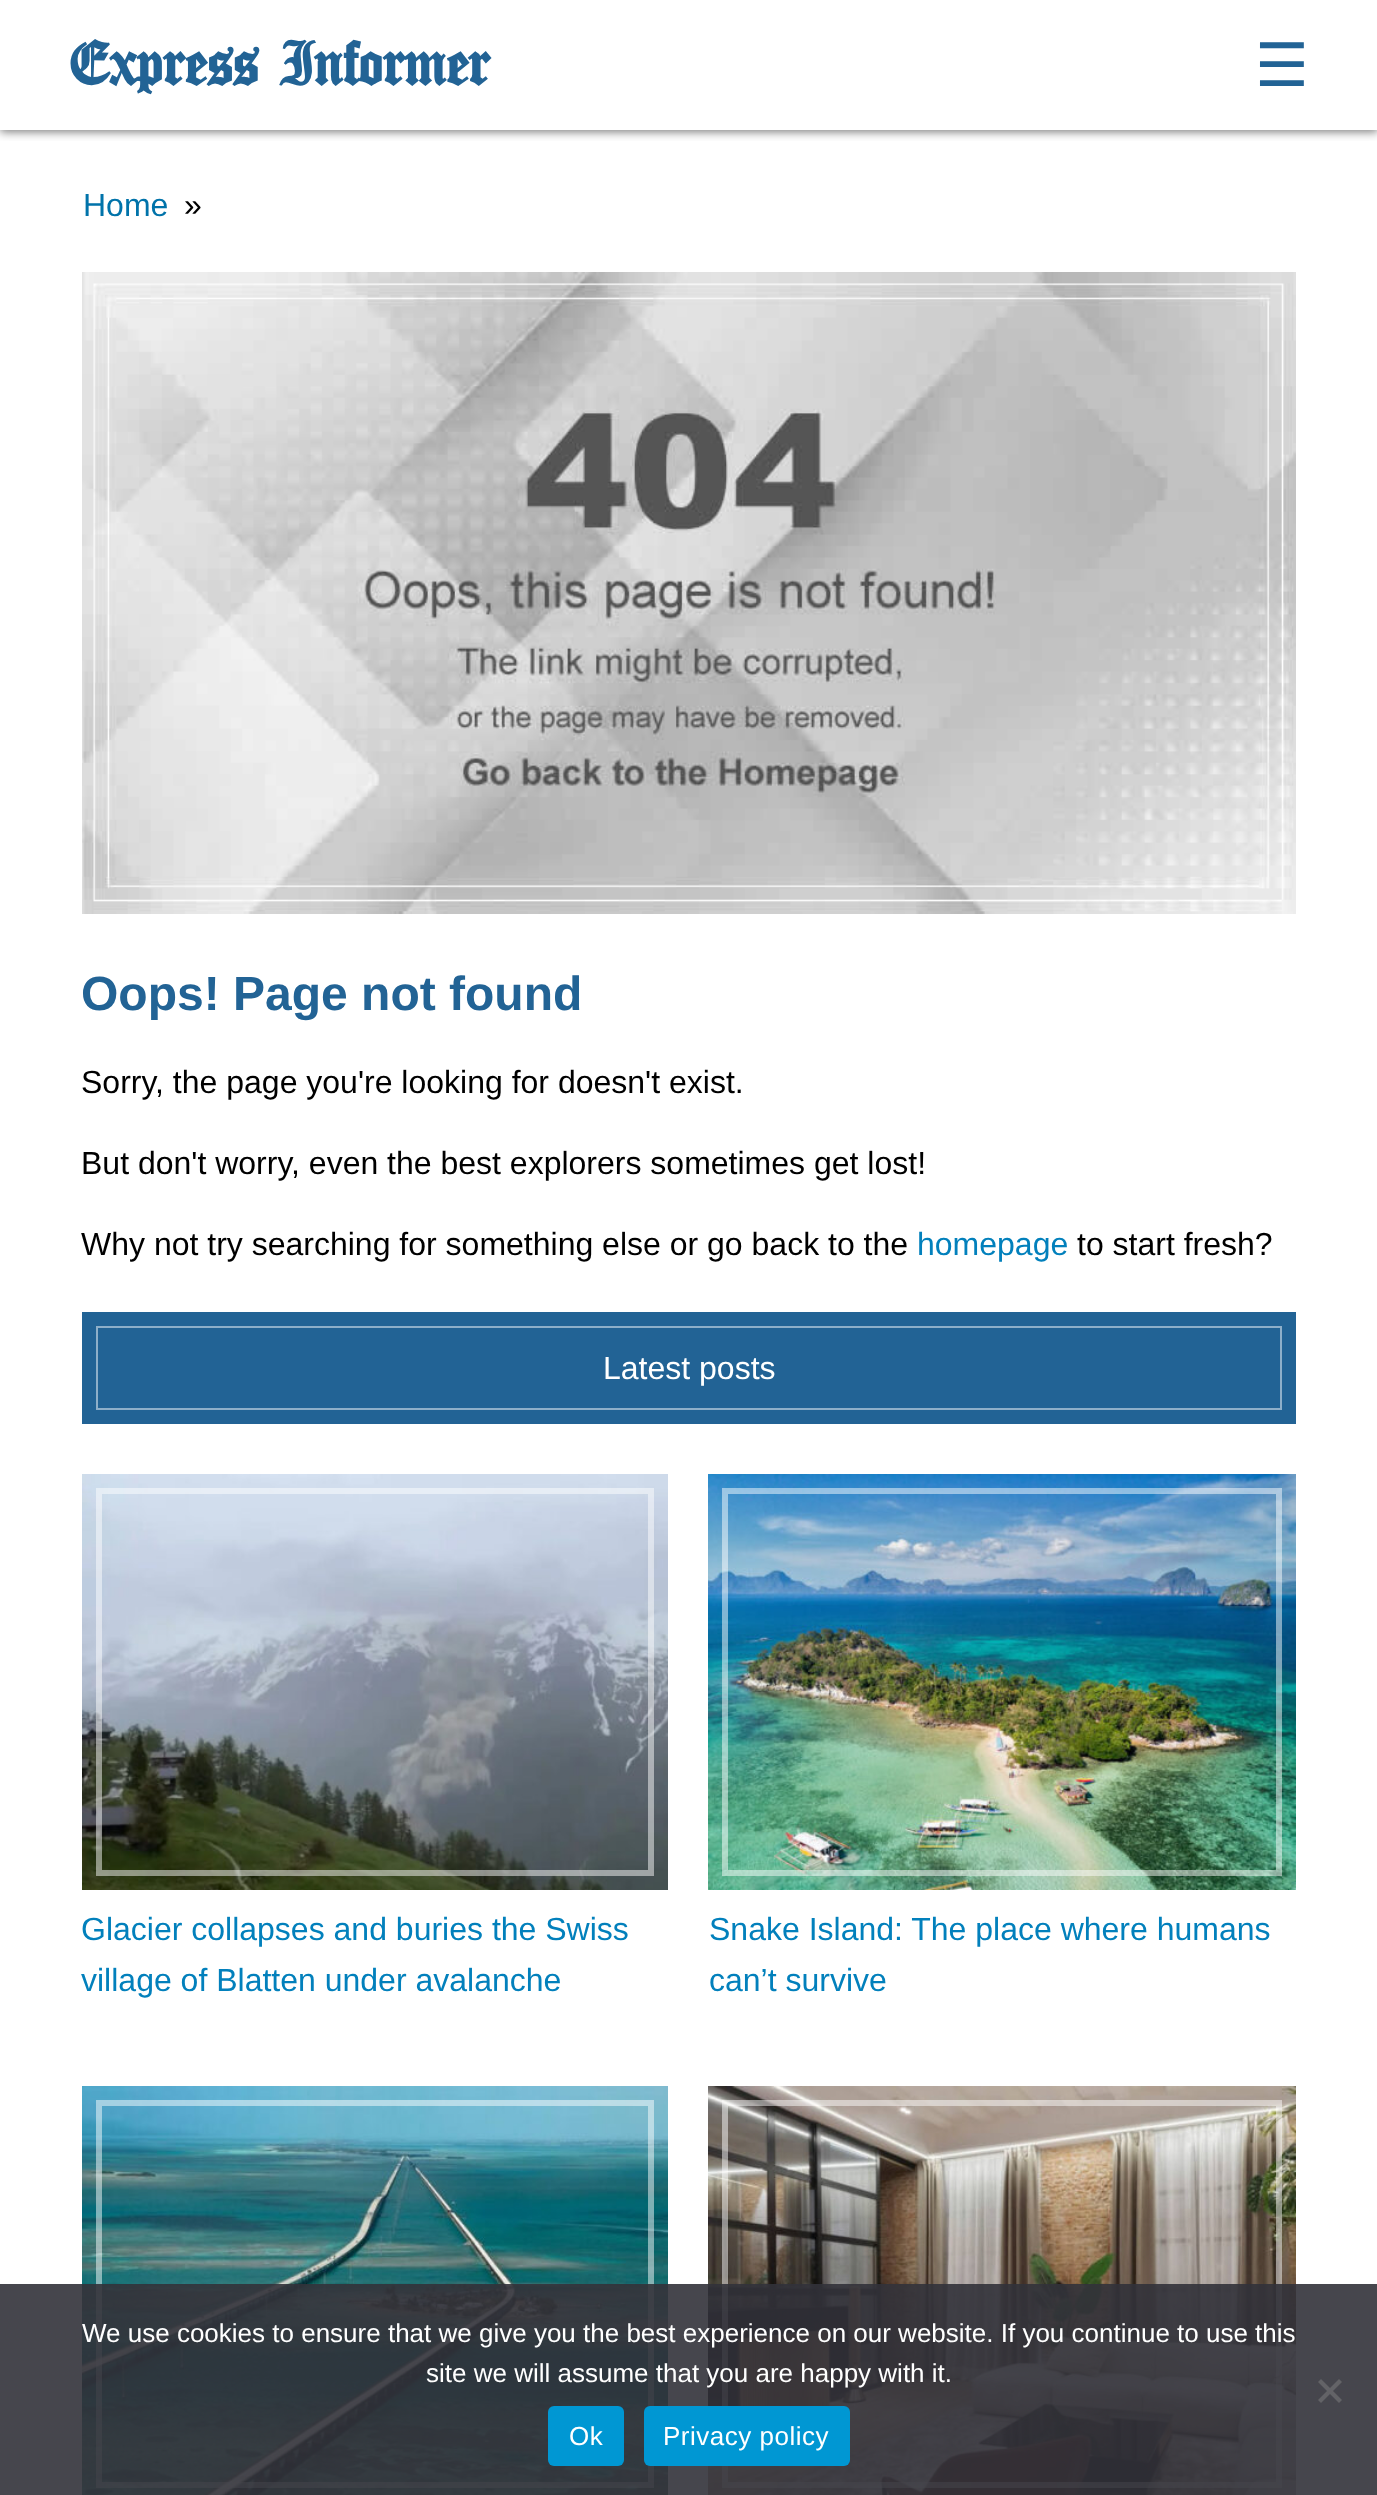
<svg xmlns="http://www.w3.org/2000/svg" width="1377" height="2495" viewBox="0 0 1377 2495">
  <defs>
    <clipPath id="clip1"><rect x="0" y="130" width="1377" height="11"/></clipPath>
    <filter id="blur1" x="-50%" y="-200%" width="200%" height="500%"><feGaussianBlur stdDeviation="5"/></filter>
  </defs>
  <rect width="100%" height="100%" fill="#ffffff"/>
  <g clip-path="url(#clip1)">
    <rect x="0" y="2" width="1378" height="130" fill="#000000" fill-opacity="0.51" filter="url(#blur1)"/>
  </g>
  <text x="69" y="85" font-family="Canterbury" font-size="64" font-weight="bold" fill="#226395">Express Informer</text>
  <text x="1255" y="86" font-family="DejaVu Sans" font-size="60" fill="#226395">☰</text>
  <text x="83" y="216" font-family="Liberation Sans" font-size="32" fill="#0073aa">Home</text>
  <text x="184" y="216" font-family="Liberation Sans" font-size="32" fill="#000000">»</text>
  <image x="82" y="272" width="1214" height="642" href="img1.png"/>
  <text x="81" y="1010" font-family="Liberation Sans" font-size="48" font-weight="bold" fill="#226395">Oops! Page not found</text>
  <text x="81" y="1093" font-family="Liberation Sans" font-size="32" fill="#000000">Sorry, the page you're looking for doesn't exist.</text>
  <text x="81" y="1174" font-family="Liberation Sans" font-size="32" fill="#000000">But don't worry, even the best explorers sometimes get lost!</text>
  <text x="81" y="1255" font-family="Liberation Sans" font-size="32" fill="#000000">Why not try searching for something else or go back to the</text>
  <text x="917" y="1255" font-family="Liberation Sans" font-size="32" fill="#0280bc">homepage</text>
  <text x="1077" y="1255" font-family="Liberation Sans" font-size="32" fill="#000000">to start fresh?</text>
  <rect x="82" y="1312" width="1214" height="112" fill="#226395"/>
  <rect x="97" y="1327" width="1184" height="82" fill="none" stroke="#8eafc9" stroke-width="2"/>
  <text x="603" y="1379" font-family="Liberation Sans" font-size="32" fill="#ffffff">Latest posts</text>
  <image x="82" y="1474" width="586" height="416" href="img2.png"/>
  <rect x="99" y="1491" width="552" height="382" fill="none" stroke="#ffffff" stroke-opacity="0.49" stroke-width="6"/>
  <text x="81" y="1940" font-family="Liberation Sans" font-size="32" fill="#0280bc">Glacier collapses and buries the Swiss</text>
  <text x="81" y="1991" font-family="Liberation Sans" font-size="32" fill="#0280bc">village of Blatten under avalanche</text>
  <image x="708" y="1474" width="588" height="416" href="img3.png"/>
  <rect x="725" y="1491" width="554" height="382" fill="none" stroke="#ffffff" stroke-opacity="0.49" stroke-width="6"/>
  <text x="709" y="1940" font-family="Liberation Sans" font-size="32" fill="#0280bc">Snake Island: The place where humans</text>
  <text x="709" y="1991" font-family="Liberation Sans" font-size="32" fill="#0280bc">can’t survive</text>
  <image x="82" y="2086" width="586" height="409" href="img4.png"/>
  <rect x="99" y="2103" width="552" height="382" fill="none" stroke="#ffffff" stroke-opacity="0.49" stroke-width="6"/>
  <image x="708" y="2086" width="588" height="409" href="img5.png"/>
  <rect x="725" y="2103" width="554" height="382" fill="none" stroke="#ffffff" stroke-opacity="0.49" stroke-width="6"/>
  <rect x="0" y="2284" width="1377" height="211" fill="#32323a" fill-opacity="0.9"/>
  <text x="82" y="2342" font-family="Liberation Sans" font-size="26" fill="#ffffff">We use cookies to ensure that we give you the best experience on our website. If you continue to use this</text>
  <text x="426" y="2382" font-family="Liberation Sans" font-size="26" fill="#ffffff">site we will assume that you are happy with it.</text>
  <path d="M1339 2379L1342 2382L1321 2403L1318 2400Z" fill="#636367"/>
  <path d="M1318 2382L1321 2379L1342 2400L1339 2403Z" fill="#636367"/>
  <rect x="548" y="2406" width="76" height="60" rx="6" fill="#0097d3"/>
  <text x="569" y="2445" font-family="Liberation Sans" font-size="26" letter-spacing="0.5" fill="#ffffff">Ok</text>
  <rect x="644" y="2406" width="206" height="60" rx="6" fill="#0097d3"/>
  <text x="663" y="2445" font-family="Liberation Sans" font-size="26" letter-spacing="0.5" fill="#ffffff">Privacy policy</text>
</svg>
